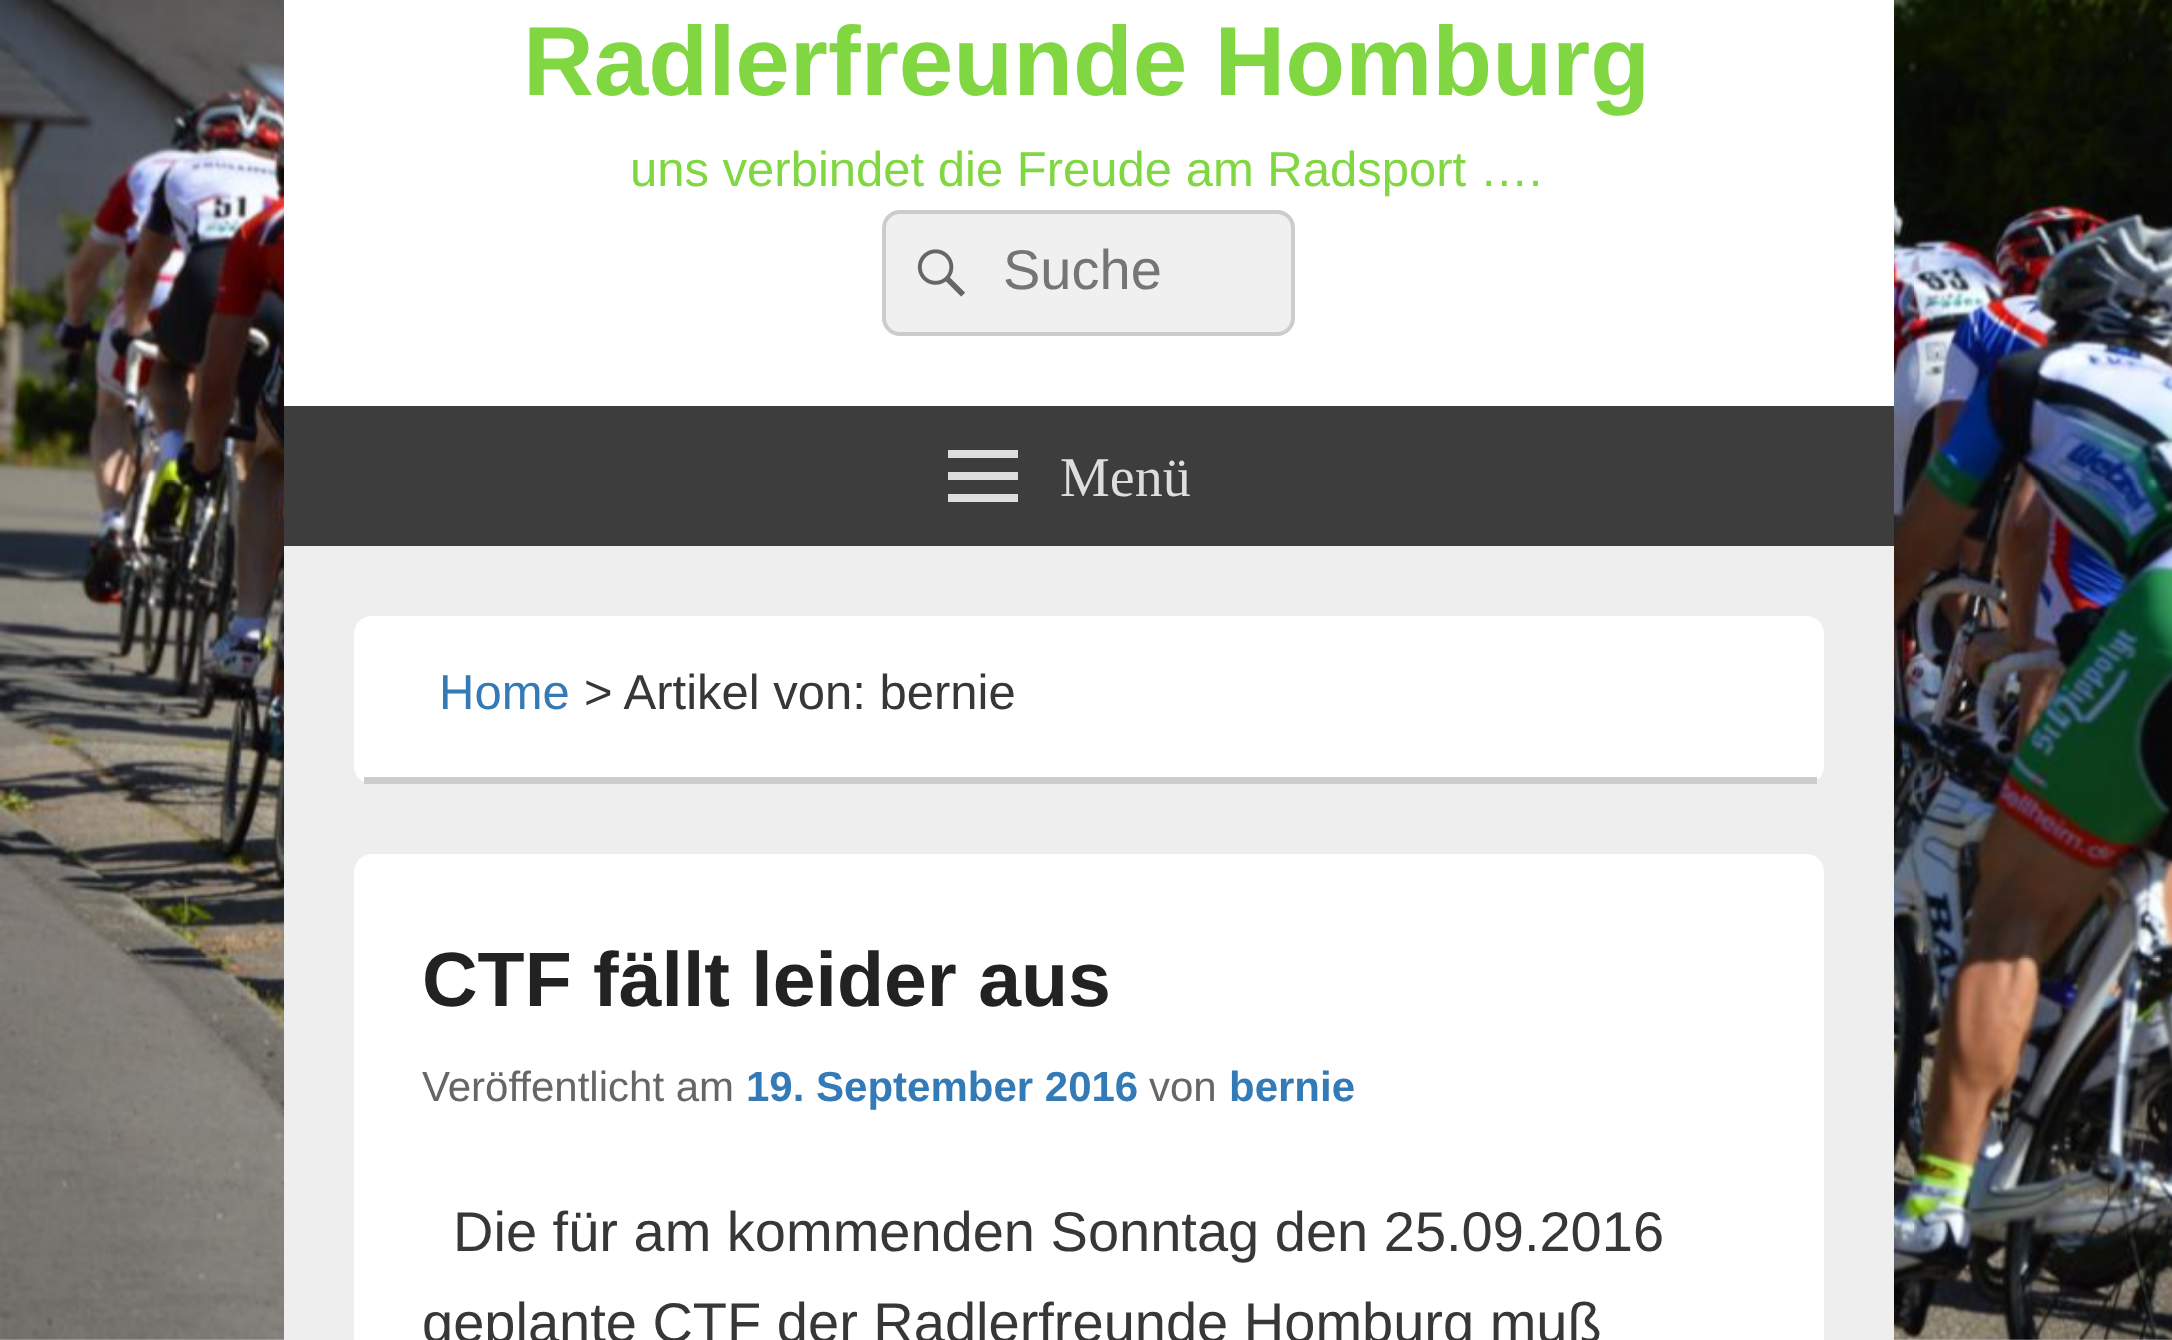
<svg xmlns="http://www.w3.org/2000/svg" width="2172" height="1340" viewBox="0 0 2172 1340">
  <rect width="100%" height="100%" fill="#ffffff"/>
  <image x="0" y="0" width="2172" height="1340" href="img1.png"/>
  <rect x="284" y="546" width="1610" height="794" fill="#eeeeee"/>
  <rect x="284" y="0" width="1610" height="406" fill="#ffffff"/>
  <text x="523" y="95" font-family="Liberation Sans" font-size="98" font-weight="bold" fill="#81d742">Radlerfreunde Homburg</text>
  <text x="630" y="186" font-family="Liberation Sans" font-size="49" fill="#81d742">uns verbindet die Freude am Radsport ….</text>
  <rect x="884" y="212" width="409" height="122" rx="16" fill="#f0f0f0" stroke="#cccccc" stroke-width="4"/>
  <image x="917" y="249" width="48" height="48" href="img2.png"/>
  <text x="1003" y="289" font-family="Liberation Sans" font-size="56" fill="#757575">Suche</text>
  <rect x="284" y="406" width="1610" height="140" fill="#3d3d3d"/>
  <path d="M948 502V494H1018V502ZM948 450H1018V458H948ZM948 480V472H1018V480Z" fill="#dddddd"/>
  <text x="1060" y="496" font-family="Liberation Serif" font-size="56" fill="#dddddd">Menü</text>
  <rect x="354" y="616" width="1470" height="168" rx="18" fill="#ffffff"/>
  <rect x="364" y="777" width="1453" height="7" fill="#cccccc"/>
  <text x="439" y="709" font-family="Liberation Sans" font-size="49" fill="#337ab7">Home</text>
  <text x="584" y="709" font-family="Liberation Sans" font-size="49" fill="#373737">&gt; Artikel von: bernie</text>
  <rect x="354" y="854" width="1470" height="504" rx="18" fill="#ffffff"/>
  <text x="422" y="1006" font-family="Liberation Sans" font-size="77" font-weight="bold" fill="#222222">CTF fällt leider aus</text>
  <text x="422" y="1101" font-family="Liberation Sans" font-size="42" fill="#666666">Veröffentlicht am</text>
  <text x="746" y="1101" font-family="Liberation Sans" font-size="42" font-weight="bold" fill="#337ab7">19. September 2016</text>
  <text x="1149" y="1101" font-family="Liberation Sans" font-size="42" fill="#666666">von</text>
  <text x="1229" y="1101" font-family="Liberation Sans" font-size="42" font-weight="bold" fill="#337ab7">bernie</text>
  <text x="453" y="1251" font-family="Liberation Sans" font-size="56" fill="#373737">Die für am kommenden Sonntag den 25.09.2016</text>
  <text x="422" y="1342" font-family="Liberation Sans" font-size="56" fill="#373737">geplante CTF der Radlerfreunde Homburg muß</text>
</svg>
